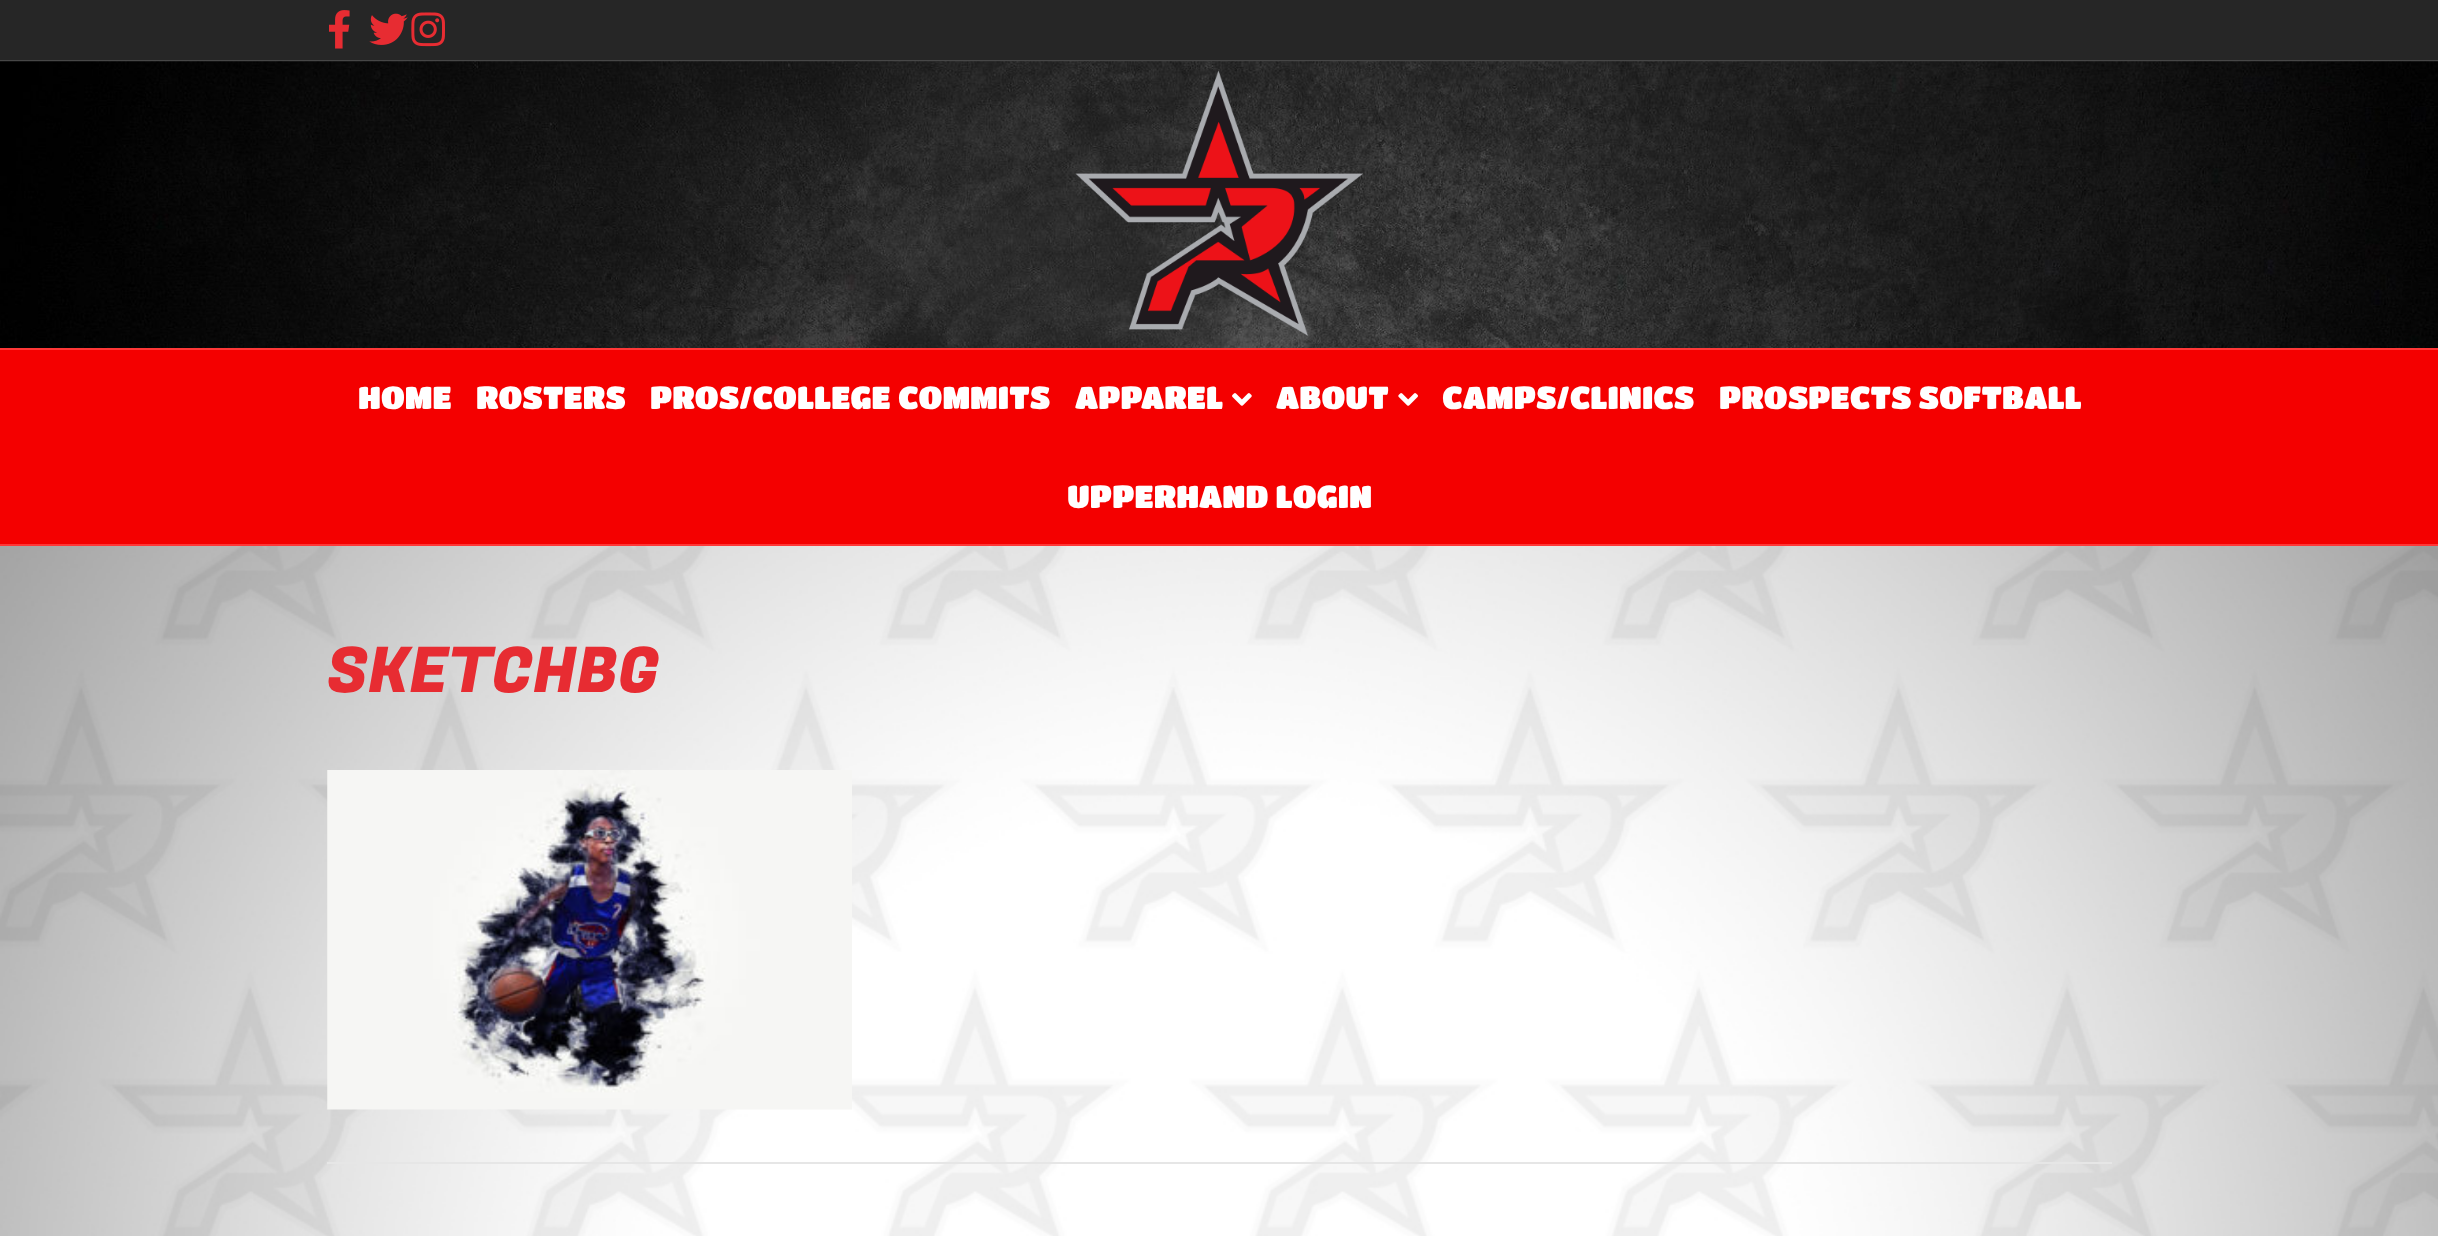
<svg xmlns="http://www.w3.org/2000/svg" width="2438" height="1236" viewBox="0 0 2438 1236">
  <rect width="100%" height="100%" fill="#262626"/>
  <rect x="0" y="60" width="2438" height="2" fill="#474747"/>
  <image x="329" y="10" width="21" height="39" href="img1.png"/>
  <image x="369" y="13" width="39" height="32" href="img2.png"/>
  <image x="411" y="12" width="34" height="35" href="img3.png"/>
  <image x="0" y="61" width="2438" height="287" href="img4.png"/>
  <image x="1075" y="70" width="288" height="266" href="img5.png"/>
  <rect x="0" y="350" width="2438" height="194" fill="#f40000"/>
  <rect x="0" y="348" width="2438" height="2" fill="#ff3737"/>
  <rect x="0" y="544" width="2438" height="2" fill="#ff3737"/>
  <text x="358" y="409" font-family="Titan One" font-size="31.5" fill="#ffffff">HOME</text>
  <text x="476" y="409" font-family="Titan One" font-size="31.5" fill="#ffffff">ROSTERS</text>
  <text x="650" y="409" font-family="Titan One" font-size="31.5" fill="#ffffff">PROS/COLLEGE COMMITS</text>
  <text x="1075" y="409" font-family="Titan One" font-size="31.5" fill="#ffffff">APPAREL</text>
  <image x="1232" y="393" width="20" height="13" href="img6.png"/>
  <text x="1276" y="409" font-family="Titan One" font-size="31.5" fill="#ffffff">ABOUT</text>
  <image x="1398" y="393" width="20" height="13" href="img7.png"/>
  <text x="1442" y="409" font-family="Titan One" font-size="31.5" fill="#ffffff">CAMPS/CLINICS</text>
  <text x="1719" y="409" font-family="Titan One" font-size="31.5" fill="#ffffff">PROSPECTS SOFTBALL</text>
  <text x="1067" y="508" font-family="Titan One" font-size="31.5" fill="#ffffff">UPPERHAND LOGIN</text>
  <image x="0" y="546" width="2438" height="690" href="img8.png"/>
  <text x="327" y="692" font-family="Fugaz One" font-size="63" fill="#e72c32">SKETCHBG</text>
  <image x="327" y="770" width="525" height="340" href="img9.png"/>
  <rect x="327" y="1162" width="1785" height="2" fill="#e6e6e6"/>
</svg>
